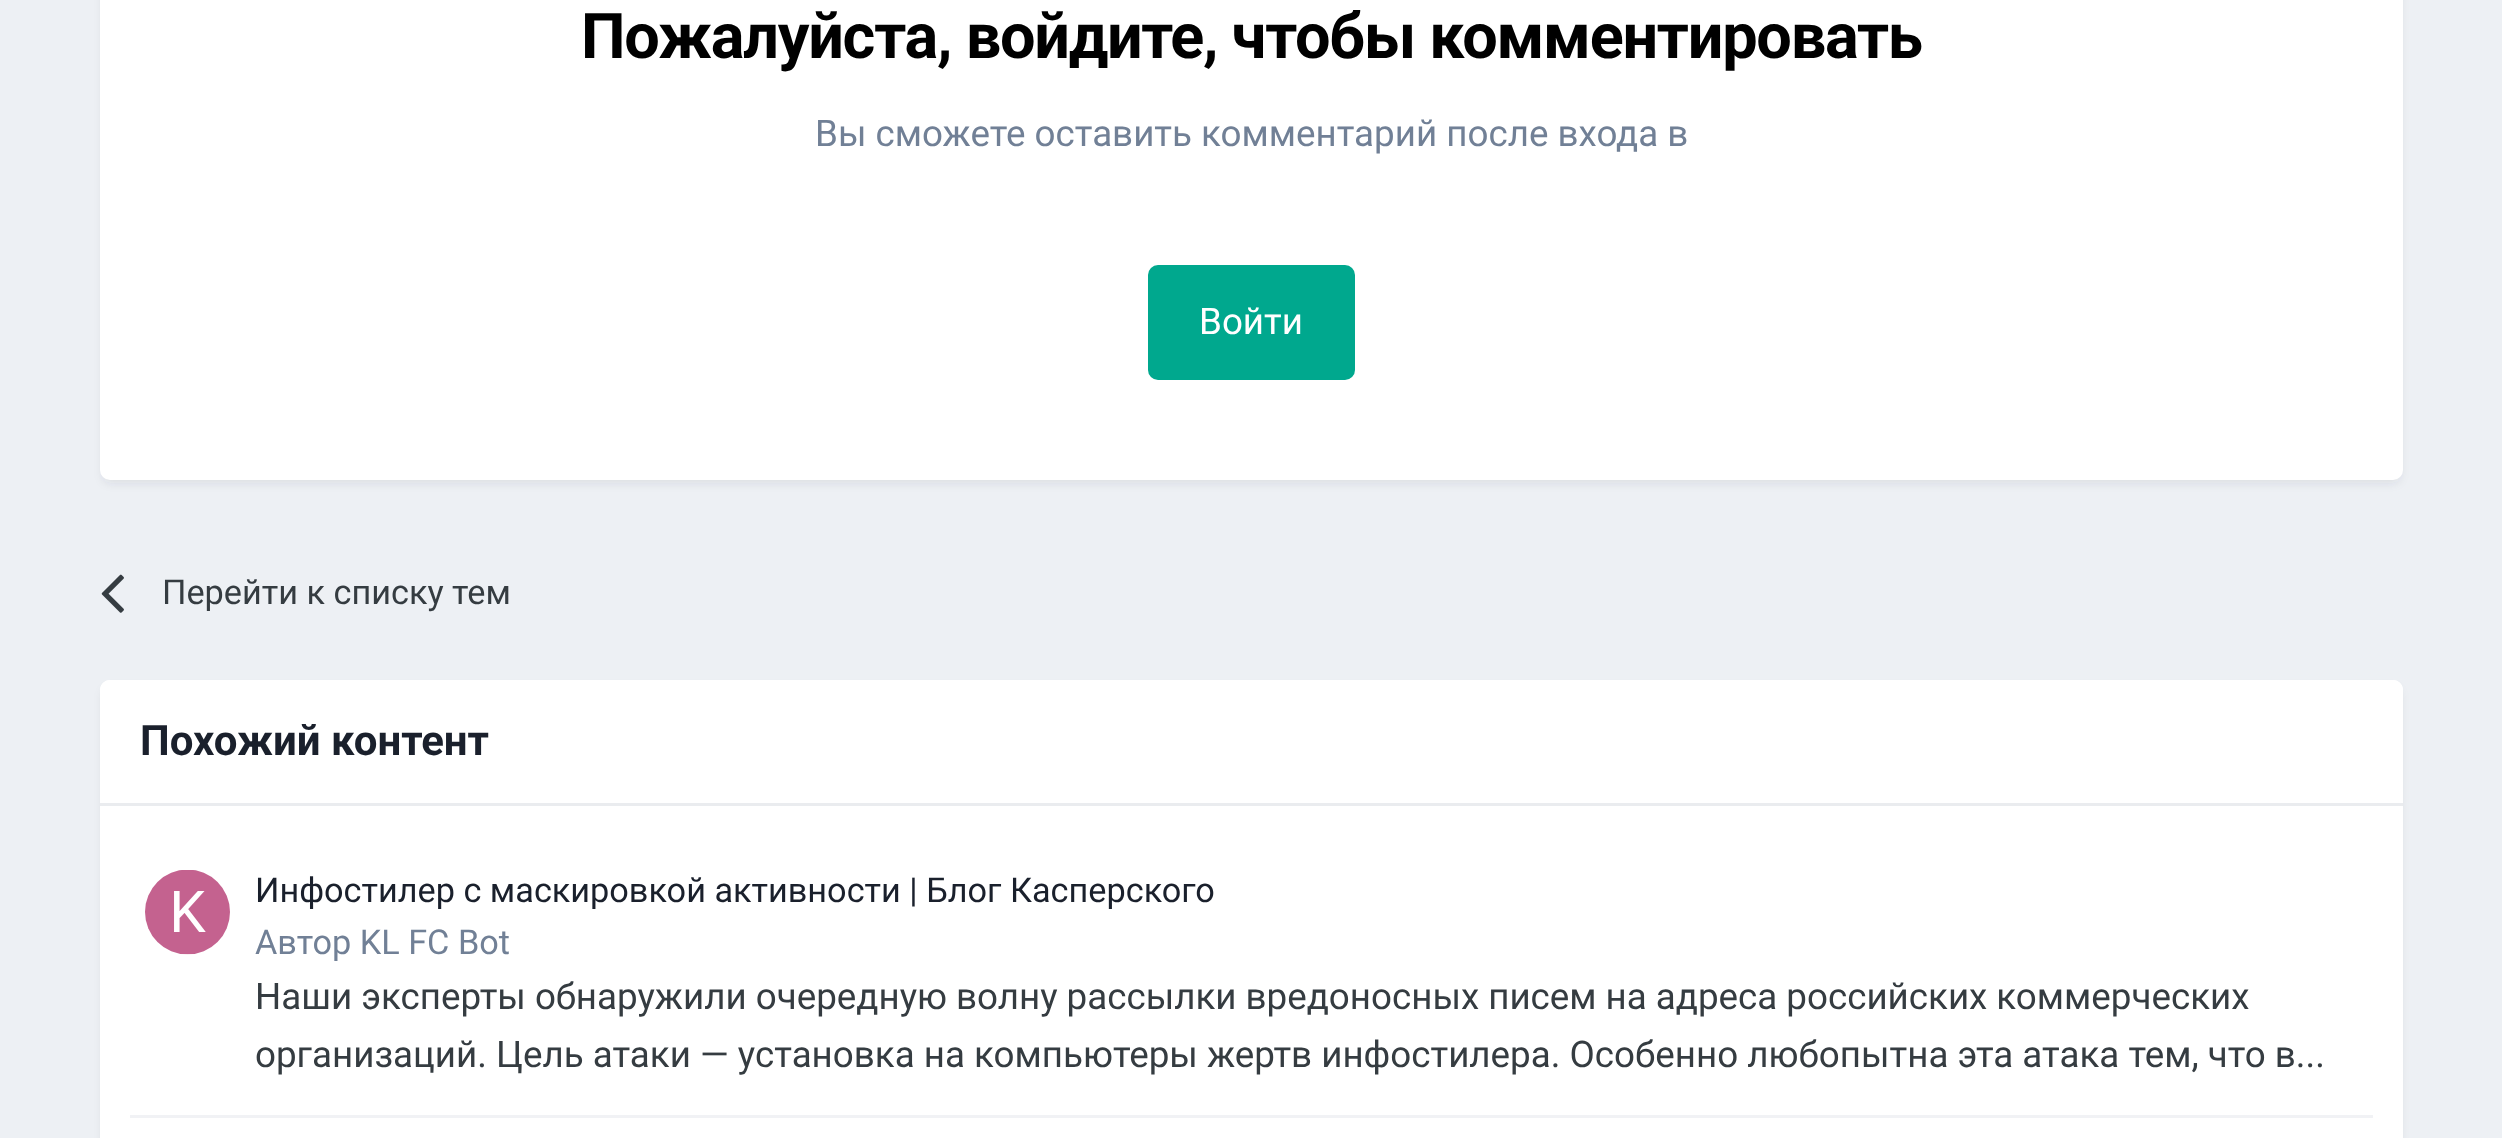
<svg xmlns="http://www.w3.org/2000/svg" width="2502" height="1138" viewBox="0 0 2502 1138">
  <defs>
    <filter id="blur1" x="-50%" y="-200%" width="200%" height="500%"><feGaussianBlur stdDeviation="5"/></filter>
  </defs>
  <rect width="100%" height="100%" fill="#edf0f4"/>
  <rect x="103" y="-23" width="2297" height="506" rx="8" fill="#2d3748" fill-opacity="0.1" filter="url(#blur1)"/>
  <rect x="100" y="-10" width="2303" height="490" rx="10" fill="#ffffff"/>
  <text x="581" y="58" font-family="Roboto" font-size="63" font-weight="bold" letter-spacing="-1.25" fill="#000000">Пожалуйста, войдите, чтобы комментировать</text>
  <text x="815" y="146" font-family="Roboto" font-size="36.75" fill="#718096">Вы сможете оставить комментарий после входа в</text>
  <rect x="1148" y="265" width="207" height="115" rx="10" fill="#00a88e"/>
  <text x="1199" y="334" font-family="Roboto" font-size="36.75" fill="#ffffff">Войти</text>
  <image x="101" y="574" width="23" height="39" href="img1.png"/>
  <text x="162" y="604" font-family="Roboto" font-size="34.25" fill="#353c41">Перейти к списку тем</text>
  <rect x="103" y="688" width="2297" height="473" rx="8" fill="#2d3748" fill-opacity="0.1" filter="url(#blur1)"/>
  <rect x="100" y="680" width="2303" height="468" rx="10" fill="#ffffff"/>
  <path d="M110 680H2393C2398.5 680 2403 684.5 2403 690V805H100V690C100 684.5 104.5 680 110 680Z" fill="#ffffff"/>
  <rect x="100" y="803" width="2303" height="3" fill="#eaecef"/>
  <text x="140" y="755" font-family="Roboto" font-size="42" font-weight="bold" fill="#1a202c">Похожий контент</text>
  <rect x="130" y="1115" width="2243" height="3" fill="#f1f2f5"/>
  <image x="145" y="870" width="85" height="85" href="img2.png"/>
  <text x="255" y="902" font-family="Roboto" font-size="34.25" fill="#1a202c">Инфостилер с маскировкой активности | Блог Касперского</text>
  <text x="255" y="954" font-family="Roboto" font-size="34.25" fill="#718096">Автор KL FC Bot</text>
  <text x="255" y="1009" word-spacing="-0.1" font-family="Roboto" font-size="36.75" fill="#353c41">Наши эксперты обнаружили очередную волну рассылки вредоносных писем на адреса российских коммерческих</text>
  <text x="255" y="1067" font-family="Roboto" font-size="36.75" fill="#353c41">организаций. Цель атаки — установка на компьютеры жертв инфостилера. Особенно любопытна эта атака тем, что в...</text>
</svg>
